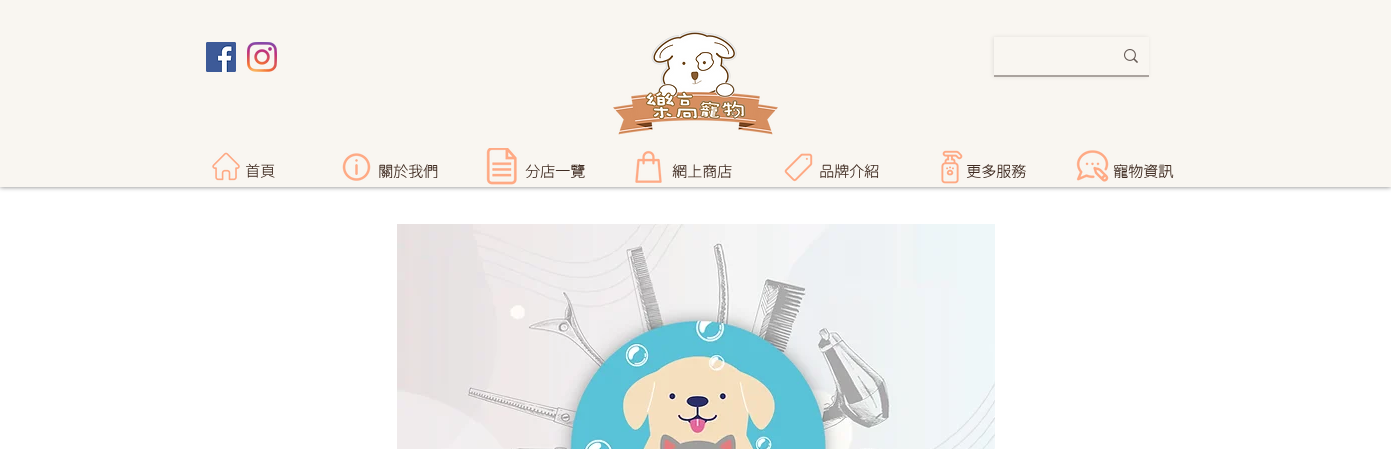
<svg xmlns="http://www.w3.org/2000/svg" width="1391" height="449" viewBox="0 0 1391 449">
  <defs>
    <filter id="blur1" x="-50%" y="-200%" width="200%" height="500%"><feGaussianBlur stdDeviation="2.5"/></filter>
    <clipPath id="clip1"><path d="M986 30H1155V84H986ZM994 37H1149V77H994Z" clip-rule="evenodd"/></clipPath>
    <filter id="blur2" x="-50%" y="-200%" width="200%" height="500%"><feGaussianBlur stdDeviation="2"/></filter>
  </defs>
  <rect width="100%" height="100%" fill="#ffffff"/>
  <rect x="0" y="0" width="1391" height="187" fill="#000000" fill-opacity="0.5" filter="url(#blur1)"/>
  <rect x="0" y="0" width="1391" height="187" fill="#f9f6f1"/>
  <image x="206" y="42" width="30" height="30" href="img1.png"/>
  <image x="247" y="42" width="30" height="30" href="img2.png"/>
  <image x="613" y="30" width="165" height="105" href="img3.png"/>
  <g clip-path="url(#clip1)">
    <rect x="993" y="37" width="155" height="40" fill="#000000" fill-opacity="0.09" filter="url(#blur2)"/>
  </g>
  <rect x="994" y="75" width="155" height="2" fill="#aaa39e"/>
  <image x="1124" y="49" width="14" height="14" href="img4.png"/>
  <image x="212" y="152" width="28" height="29" href="img5.png"/>
  <image x="342" y="153" width="29" height="28" href="img6.png"/>
  <image x="486" y="148" width="31" height="37" href="img7.png"/>
  <image x="635" y="150" width="27" height="33" href="img8.png"/>
  <image x="784" y="153" width="29" height="29" href="img9.png"/>
  <image x="941" y="150" width="22" height="34" href="img10.png"/>
  <image x="1076" y="150" width="33" height="32" href="img11.png"/>
  <text x="245" y="177" font-family="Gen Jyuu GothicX" font-size="15" font-weight="bold" fill="#3f2b21">首頁</text>
  <text x="378" y="177" font-family="Gen Jyuu GothicX" font-size="15" font-weight="bold" fill="#3f2b21">關於我們</text>
  <text x="525" y="177" font-family="Gen Jyuu GothicX" font-size="15" font-weight="bold" fill="#3f2b21">分店一覽</text>
  <text x="672" y="177" font-family="Gen Jyuu GothicX" font-size="15" font-weight="bold" fill="#3f2b21">網上商店</text>
  <text x="819" y="177" font-family="Gen Jyuu GothicX" font-size="15" font-weight="bold" fill="#3f2b21">品牌介紹</text>
  <text x="966" y="177" font-family="Gen Jyuu GothicX" font-size="15" font-weight="bold" fill="#3f2b21">更多服務</text>
  <text x="1113" y="177" font-family="Gen Jyuu GothicX" font-size="15" font-weight="bold" fill="#3f2b21">寵物資訊</text>
  <image x="397" y="224" width="598" height="225" href="img12.png"/>
</svg>
